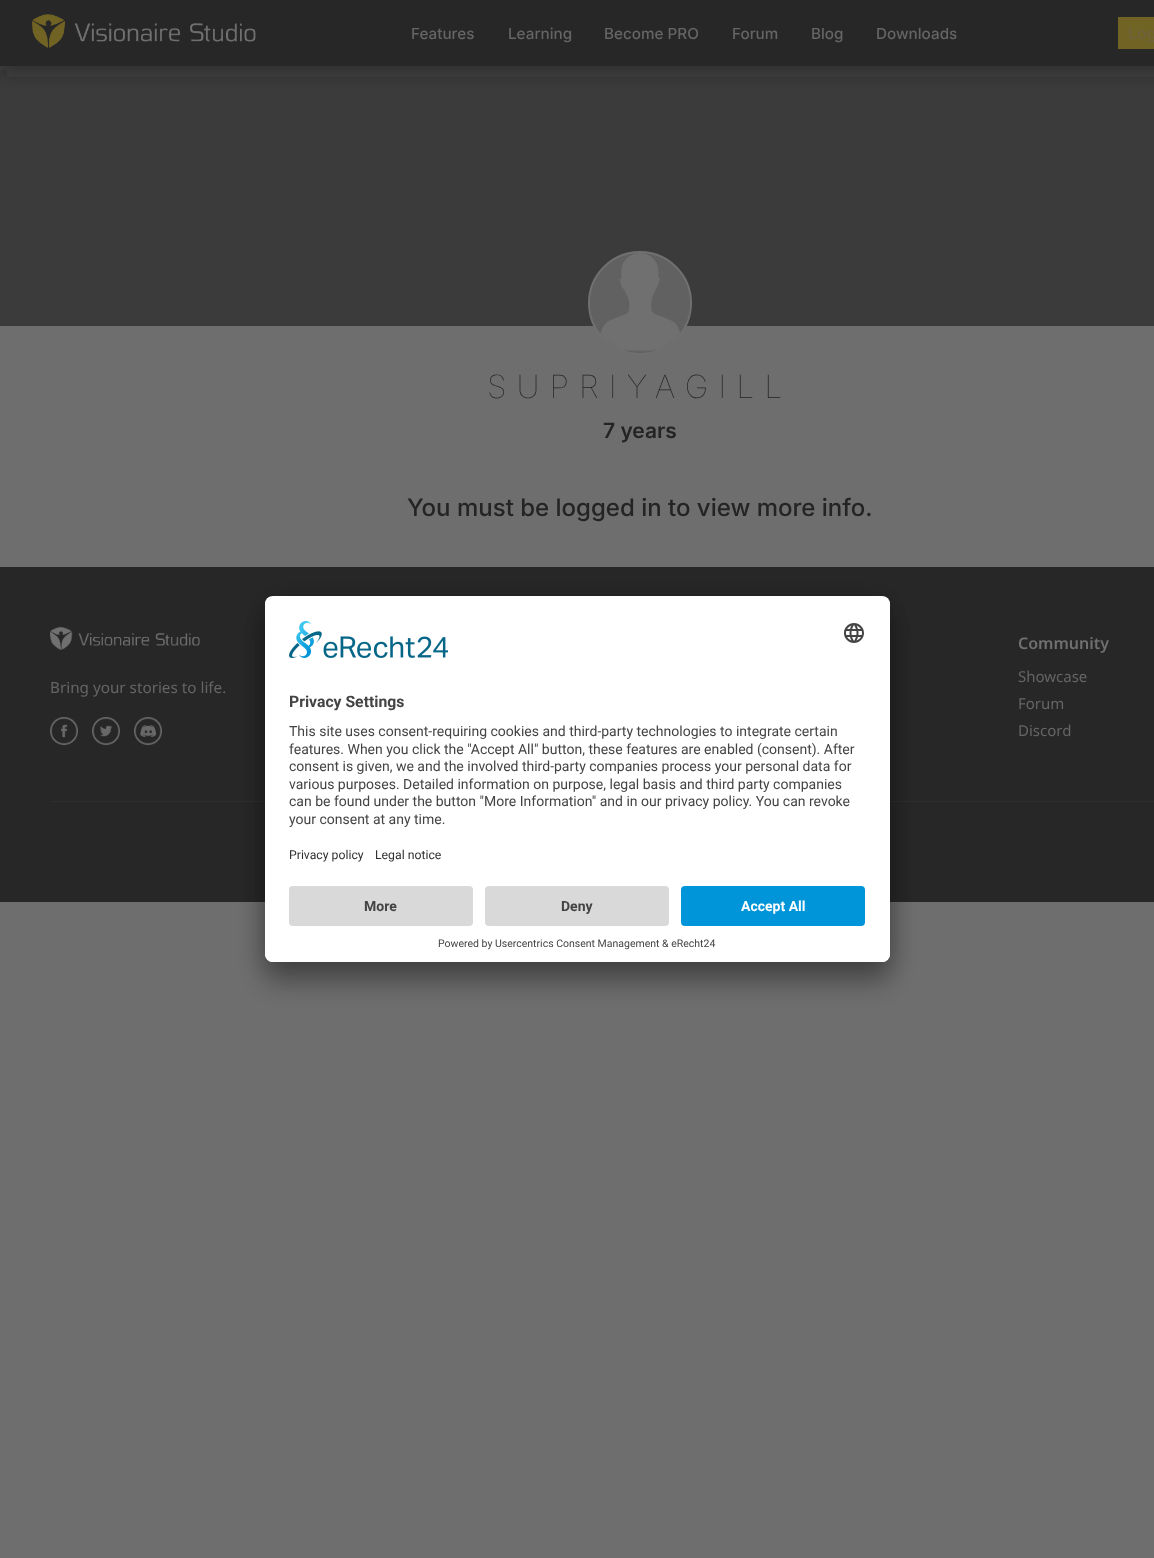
<svg xmlns="http://www.w3.org/2000/svg" width="1154" height="1558" viewBox="0 0 1154 1558">
  <defs>
    <filter id="blur1" x="-50%" y="-200%" width="200%" height="500%"><feGaussianBlur stdDeviation="10"/></filter>
    <filter id="blur2" x="-50%" y="-200%" width="200%" height="500%"><feGaussianBlur stdDeviation="14"/></filter>
    <filter id="blur3" x="-50%" y="-200%" width="200%" height="500%"><feGaussianBlur stdDeviation="13"/></filter>
    <clipPath id="clip1"><rect x="265" y="596" width="625" height="366" rx="8"/></clipPath>
    <clipPath id="clip2"><path d="M273 596H882C886.5 596 890 599.5 890 604V878H265V604C265 599.5 268.5 596 273 596Z"/></clipPath>
  </defs>
  <rect width="100%" height="100%" fill="#6e6e6e"/>
  <rect x="0" y="66" width="1154" height="260" fill="#3b3b3b"/>
  <rect x="0" y="4" width="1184" height="66" fill="#242424" fill-opacity="0.45" filter="url(#blur1)"/>
  <rect x="0" y="0" width="1154" height="66" fill="#272728"/>
  <image x="32" y="14" width="224" height="34" href="img1.png"/>
  <text x="411" y="39" font-family="Inter" font-size="15.25" font-weight="500" fill="#656565">Features</text>
  <text x="508" y="39" font-family="Inter" font-size="15.25" font-weight="500" fill="#656565">Learning</text>
  <text x="604" y="39" font-family="Inter" font-size="15.25" font-weight="500" fill="#656565">Become PRO</text>
  <text x="732" y="39" font-family="Inter" font-size="15.25" font-weight="500" fill="#656565">Forum</text>
  <text x="811" y="39" font-family="Inter" font-size="15.25" font-weight="500" fill="#656565">Blog</text>
  <text x="876" y="39" font-family="Inter" font-size="15.25" font-weight="500" fill="#656565">Downloads</text>
  <rect x="1118" y="17" width="36" height="32" fill="#706324"/>
  <text x="1128" y="39" font-family="Inter" font-size="16" font-weight="600" fill="#70633b">Log</text>
  <circle cx="640" cy="303" r="51" fill="#616161" stroke="#707070" stroke-width="2"/>
  <image x="600" y="253" width="80" height="99" href="img2.png"/>
  <text x="487" y="398" font-family="Inter" font-size="32" font-weight="100" letter-spacing="10" fill="#242424">SUPRIYAGILL</text>
  <text x="603" y="438" font-family="Inter" font-size="21" font-weight="600" fill="#242424">7 years</text>
  <text x="407" y="516" font-family="Inter" font-size="24" font-weight="500" fill="#242424">You must be logged in to view more info.</text>
  <rect x="0" y="567" width="1154" height="335" fill="#272728"/>
  <image x="50" y="627" width="150" height="23" href="img3.png"/>
  <text x="50" y="693" font-family="Noto Sans" font-size="15.25" fill="#656565">Bring your stories to life.</text>
  <image x="50" y="717" width="28" height="28" href="img4.png"/>
  <image x="92" y="717" width="28" height="28" href="img5.png"/>
  <image x="134" y="717" width="28" height="28" href="img6.png"/>
  <text x="1018" y="649" font-family="Noto Sans" font-size="16" font-weight="600" fill="#707070">Community</text>
  <text x="1018" y="682" font-family="Noto Sans" font-size="15" fill="#656565">Showcase</text>
  <text x="1018" y="709" font-family="Noto Sans" font-size="15" fill="#656565">Forum</text>
  <text x="1018" y="736" font-family="Noto Sans" font-size="15" fill="#656565">Discord</text>
  <rect x="50" y="801" width="1104" height="1" fill="#2e2e2f"/>
  <rect x="265" y="616" width="625" height="366" rx="8" fill="#000000" fill-opacity="0.3" filter="url(#blur2)"/>
  <rect x="265" y="601" width="625" height="366" rx="8" fill="#000000" fill-opacity="0.22" filter="url(#blur3)"/>
  <rect x="265" y="596" width="625" height="366" rx="8" fill="#ffffff"/>
  <g clip-path="url(#clip1)">
    <g clip-path="url(#clip2)">
      <rect x="265" y="597" width="625" height="281" fill="#ffffff"/>
    </g>
  </g>
  <image x="289" y="621" width="159" height="37" href="img7.png"/>
  <image x="844" y="623" width="20" height="20" href="img8.png"/>
  <text x="289" y="707" font-family="Roboto" font-size="15.75" font-weight="bold" fill="#444444">Privacy Settings</text>
  <text x="289" y="736" font-family="Roboto" font-size="14" fill="#444444">This site uses consent-requiring cookies and third-party technologies to integrate certain</text>
  <text x="289" y="754" font-family="Roboto" font-size="14" fill="#444444">features. When you click the "Accept All" button, these features are enabled (consent). After</text>
  <text x="289" y="771" font-family="Roboto" font-size="14" fill="#444444">consent is given, we and the involved third-party companies process your personal data for</text>
  <text x="289" y="789" font-family="Roboto" font-size="14" fill="#444444">various purposes. Detailed information on purpose, legal basis and third party companies</text>
  <text x="289" y="806" font-family="Roboto" font-size="14" fill="#444444">can be found under the button "More Information" and in our privacy policy. You can revoke</text>
  <text x="289" y="824" font-family="Roboto" font-size="14" fill="#444444">your consent at any time.</text>
  <text x="289" y="859" font-family="Roboto" font-size="12.25" fill="#303030">Privacy policy</text>
  <text x="375" y="859" font-family="Roboto" font-size="12.25" fill="#303030">Legal notice</text>
  <path d="M265 878H890V954C890 958.5 886.5 962 882 962H273C268.5 962 265 958.5 265 954Z" fill="#ffffff"/>
  <rect x="289" y="886" width="184" height="40" rx="4" fill="#d9d9d9"/>
  <text x="364" y="911" font-family="Roboto" font-size="14" font-weight="bold" fill="#444444">More</text>
  <rect x="485" y="886" width="184" height="40" rx="4" fill="#d9d9d9"/>
  <text x="561" y="911" font-family="Roboto" font-size="14" font-weight="bold" fill="#444444">Deny</text>
  <rect x="681" y="886" width="184" height="40" rx="4" fill="#0094d8"/>
  <text x="741" y="911" font-family="Roboto" font-size="14" font-weight="bold" fill="#ffffff">Accept All</text>
  <text x="438" y="947" font-family="Roboto" font-size="10.5" fill="#444444">Powered by Usercentrics Consent Management &amp; eRecht24</text>
</svg>
